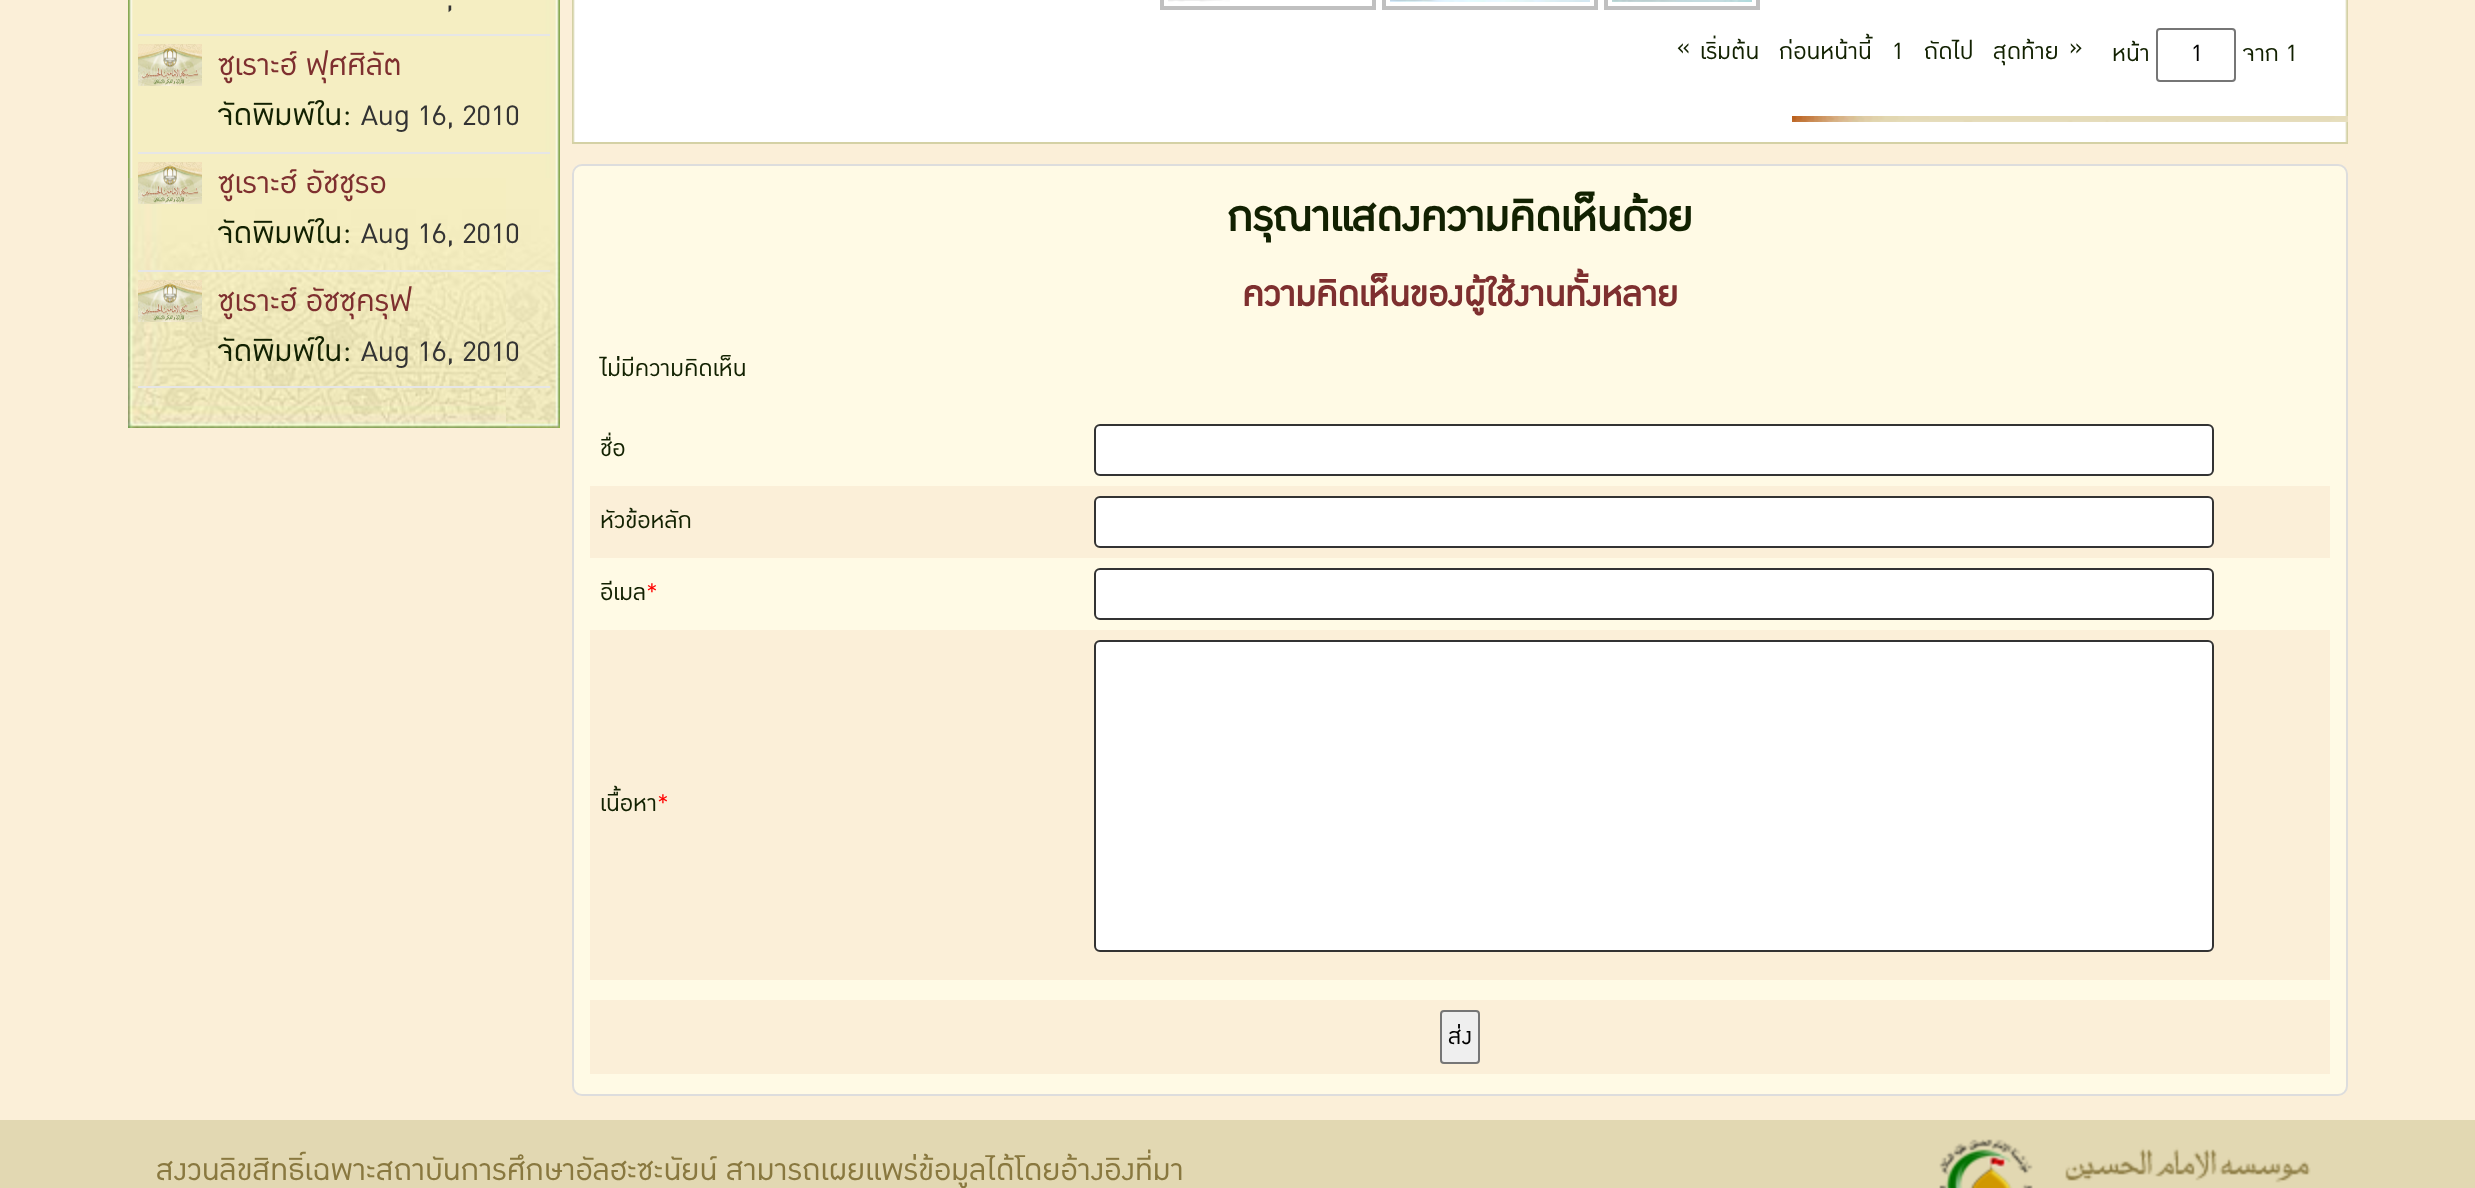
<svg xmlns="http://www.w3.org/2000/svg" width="2475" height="1188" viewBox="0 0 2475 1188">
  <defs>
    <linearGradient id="g1" gradientUnits="userSpaceOnUse" x1="1238" y1="-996" x2="1238" y2="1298"><stop offset="0" stop-color="#efdaaf"/><stop offset="0.02" stop-color="#f8eacd"/><stop offset="0.08" stop-color="#fceed4"/><stop offset="0.12" stop-color="#fbefd8"/><stop offset="1" stop-color="#fbefd8"/></linearGradient>
  </defs>
  <rect width="100%" height="100%" fill="#ffffff"/>
  <rect x="0" y="0" width="2475" height="1120" fill="url(#g1)"/>
  <image x="128" y="0" width="432" height="428" href="img1.png"/>
  <rect x="138" y="34" width="412" height="2" fill="#e6e6e6"/>
  <text x="446" y="8" font-family="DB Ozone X" font-size="38.5" fill="#333333">,</text>
  <rect x="138" y="152" width="412" height="2" fill="#e6e6e6"/>
  <image x="138" y="44" width="64" height="42" href="img2.png"/>
  <text x="218" y="75" font-family="DB Ozone X" font-size="41.6" fill="#7e2f2f">ซูเราะฮ์ ฟุศศิลัต</text>
  <text x="218" y="125" font-family="DB Ozone X" font-size="41.6" fill="#122101">จัดพิมพ์ใน:</text>
  <text x="361" y="125" font-family="DB Ozone X" font-size="38.5" fill="#333333">Aug 16, 2010</text>
  <rect x="138" y="270" width="412" height="2" fill="#e6e6e6"/>
  <image x="138" y="162" width="64" height="42" href="img2.png"/>
  <text x="218" y="193" font-family="DB Ozone X" font-size="41.6" fill="#7e2f2f">ซูเราะฮ์ อัชชูรอ</text>
  <text x="218" y="243" font-family="DB Ozone X" font-size="41.6" fill="#122101">จัดพิมพ์ใน:</text>
  <text x="361" y="243" font-family="DB Ozone X" font-size="38.5" fill="#333333">Aug 16, 2010</text>
  <rect x="138" y="386" width="412" height="2" fill="#e6e6e6"/>
  <image x="138" y="280" width="64" height="42" href="img2.png"/>
  <text x="218" y="311" font-family="DB Ozone X" font-size="41.6" fill="#7e2f2f">ซูเราะฮ์ อัซซุครุฟ</text>
  <text x="218" y="361" font-family="DB Ozone X" font-size="41.6" fill="#122101">จัดพิมพ์ใน:</text>
  <text x="361" y="361" font-family="DB Ozone X" font-size="38.5" fill="#333333">Aug 16, 2010</text>
  <image x="572" y="0" width="1776" height="142" href="img3.png"/>
  <rect x="572" y="142" width="1776" height="2" fill="#d4d1a5"/>
  <rect x="1162" y="-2" width="212" height="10" fill="none" stroke="#c0c0c0" stroke-width="4"/>
  <rect x="1384" y="-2" width="212" height="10" fill="none" stroke="#c0c0c0" stroke-width="4"/>
  <rect x="1606" y="-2" width="152" height="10" fill="none" stroke="#c0c0c0" stroke-width="4"/>
  <image x="1168" y="0" width="62" height="2" href="img4.png"/>
  <image x="1390" y="0" width="200" height="2" href="img5.png"/>
  <image x="1612" y="0" width="140" height="2" href="img6.png"/>
  <text x="1677" y="55" font-family="DB Ozone X" font-size="32" fill="#122101">«</text>
  <text x="1700" y="59" font-family="DB Ozone X" font-size="32" fill="#122101">เริ่มต้น</text>
  <text x="1779" y="59" font-family="DB Ozone X" font-size="32" fill="#122101">ก่อนหน้านี้</text>
  <text x="1892" y="59" font-family="DB Ozone X" font-size="32" fill="#122101">1</text>
  <text x="1924" y="59" font-family="DB Ozone X" font-size="32" fill="#122101">ถัดไป</text>
  <text x="1993" y="59" font-family="DB Ozone X" font-size="32" fill="#122101">สุดท้าย</text>
  <text x="2069" y="55" font-family="DB Ozone X" font-size="32" fill="#122101">»</text>
  <text x="2112" y="61" font-family="DB Ozone X" font-size="32" fill="#122101">หน้า</text>
  <rect x="2157" y="29" width="78" height="52" rx="3" fill="none" stroke="#767676" stroke-width="2"/>
  <text x="2191" y="61" font-family="DB Ozone X" font-size="32" fill="#000000">1</text>
  <text x="2243" y="61" font-family="DB Ozone X" font-size="32" fill="#122101">จาก 1</text>
  <rect x="573" y="165" width="1774" height="930" rx="9" fill="#fffae5" stroke="#dddddd" stroke-width="2"/>
  <text x="1227" y="231" font-family="DB Ozone X" font-size="57.5" font-weight="bold" fill="#122101">กรุณาแสดงความคิดเห็นด้วย</text>
  <text x="1242" y="306" font-family="DB Ozone X" font-size="48" font-weight="bold" fill="#7e2f2f">ความคิดเห็นของผู้ใช้งานทั้งหลาย</text>
  <text x="600" y="376" font-family="DB Ozone X" font-size="32" fill="#122101">ไม่่มีความคิดเห็น</text>
  <text x="600" y="456" font-family="DB Ozone X" font-size="32" fill="#122101">ชื่อ</text>
  <rect x="1095" y="425" width="1118" height="50" rx="5" fill="#ffffff" stroke="#333333" stroke-width="2"/>
  <rect x="590" y="486" width="1740" height="72" fill="#fbefd8"/>
  <text x="600" y="528" font-family="DB Ozone X" font-size="32" fill="#122101">หัวข้อหลัก</text>
  <rect x="1095" y="497" width="1118" height="50" rx="5" fill="#ffffff" stroke="#333333" stroke-width="2"/>
  <text x="600" y="600" font-family="DB Ozone X" font-size="32" fill="#122101">อีเมล</text>
  <text x="646" y="600" font-family="DB Ozone X" font-size="32" fill="#ff0000">*</text>
  <rect x="1095" y="569" width="1118" height="50" rx="5" fill="#ffffff" stroke="#333333" stroke-width="2"/>
  <rect x="590" y="630" width="1740" height="350" fill="#fbefd8"/>
  <text x="600" y="811" font-family="DB Ozone X" font-size="32" fill="#122101">เนื้อหา</text>
  <text x="657" y="811" font-family="DB Ozone X" font-size="32" fill="#ff0000">*</text>
  <rect x="1095" y="641" width="1118" height="310" rx="5" fill="#ffffff" stroke="#333333" stroke-width="2"/>
  <rect x="590" y="1000" width="1740" height="74" fill="#fbefd8"/>
  <rect x="1441" y="1011" width="38" height="52" rx="3" fill="#efefef" stroke="#767676" stroke-width="2"/>
  <text x="1448" y="1044" font-family="DB Ozone X" font-size="32" fill="#000000">ส่ง</text>
  <rect x="0" y="1120" width="2475" height="68" fill="#e2d8b2"/>
  <text x="156" y="1180" font-family="DB Ozone X" font-size="41.6" fill="#89783f">สงวนลิขสิทธิ์เฉพาะสถาบันการศึกษาอัลฮะซะนัยน์ สามารถเผยแพร่ข้อมูลได้โดยอ้างอิงที่มา</text>
  <image x="1939" y="1139" width="372" height="49" href="img7.png"/>
</svg>
